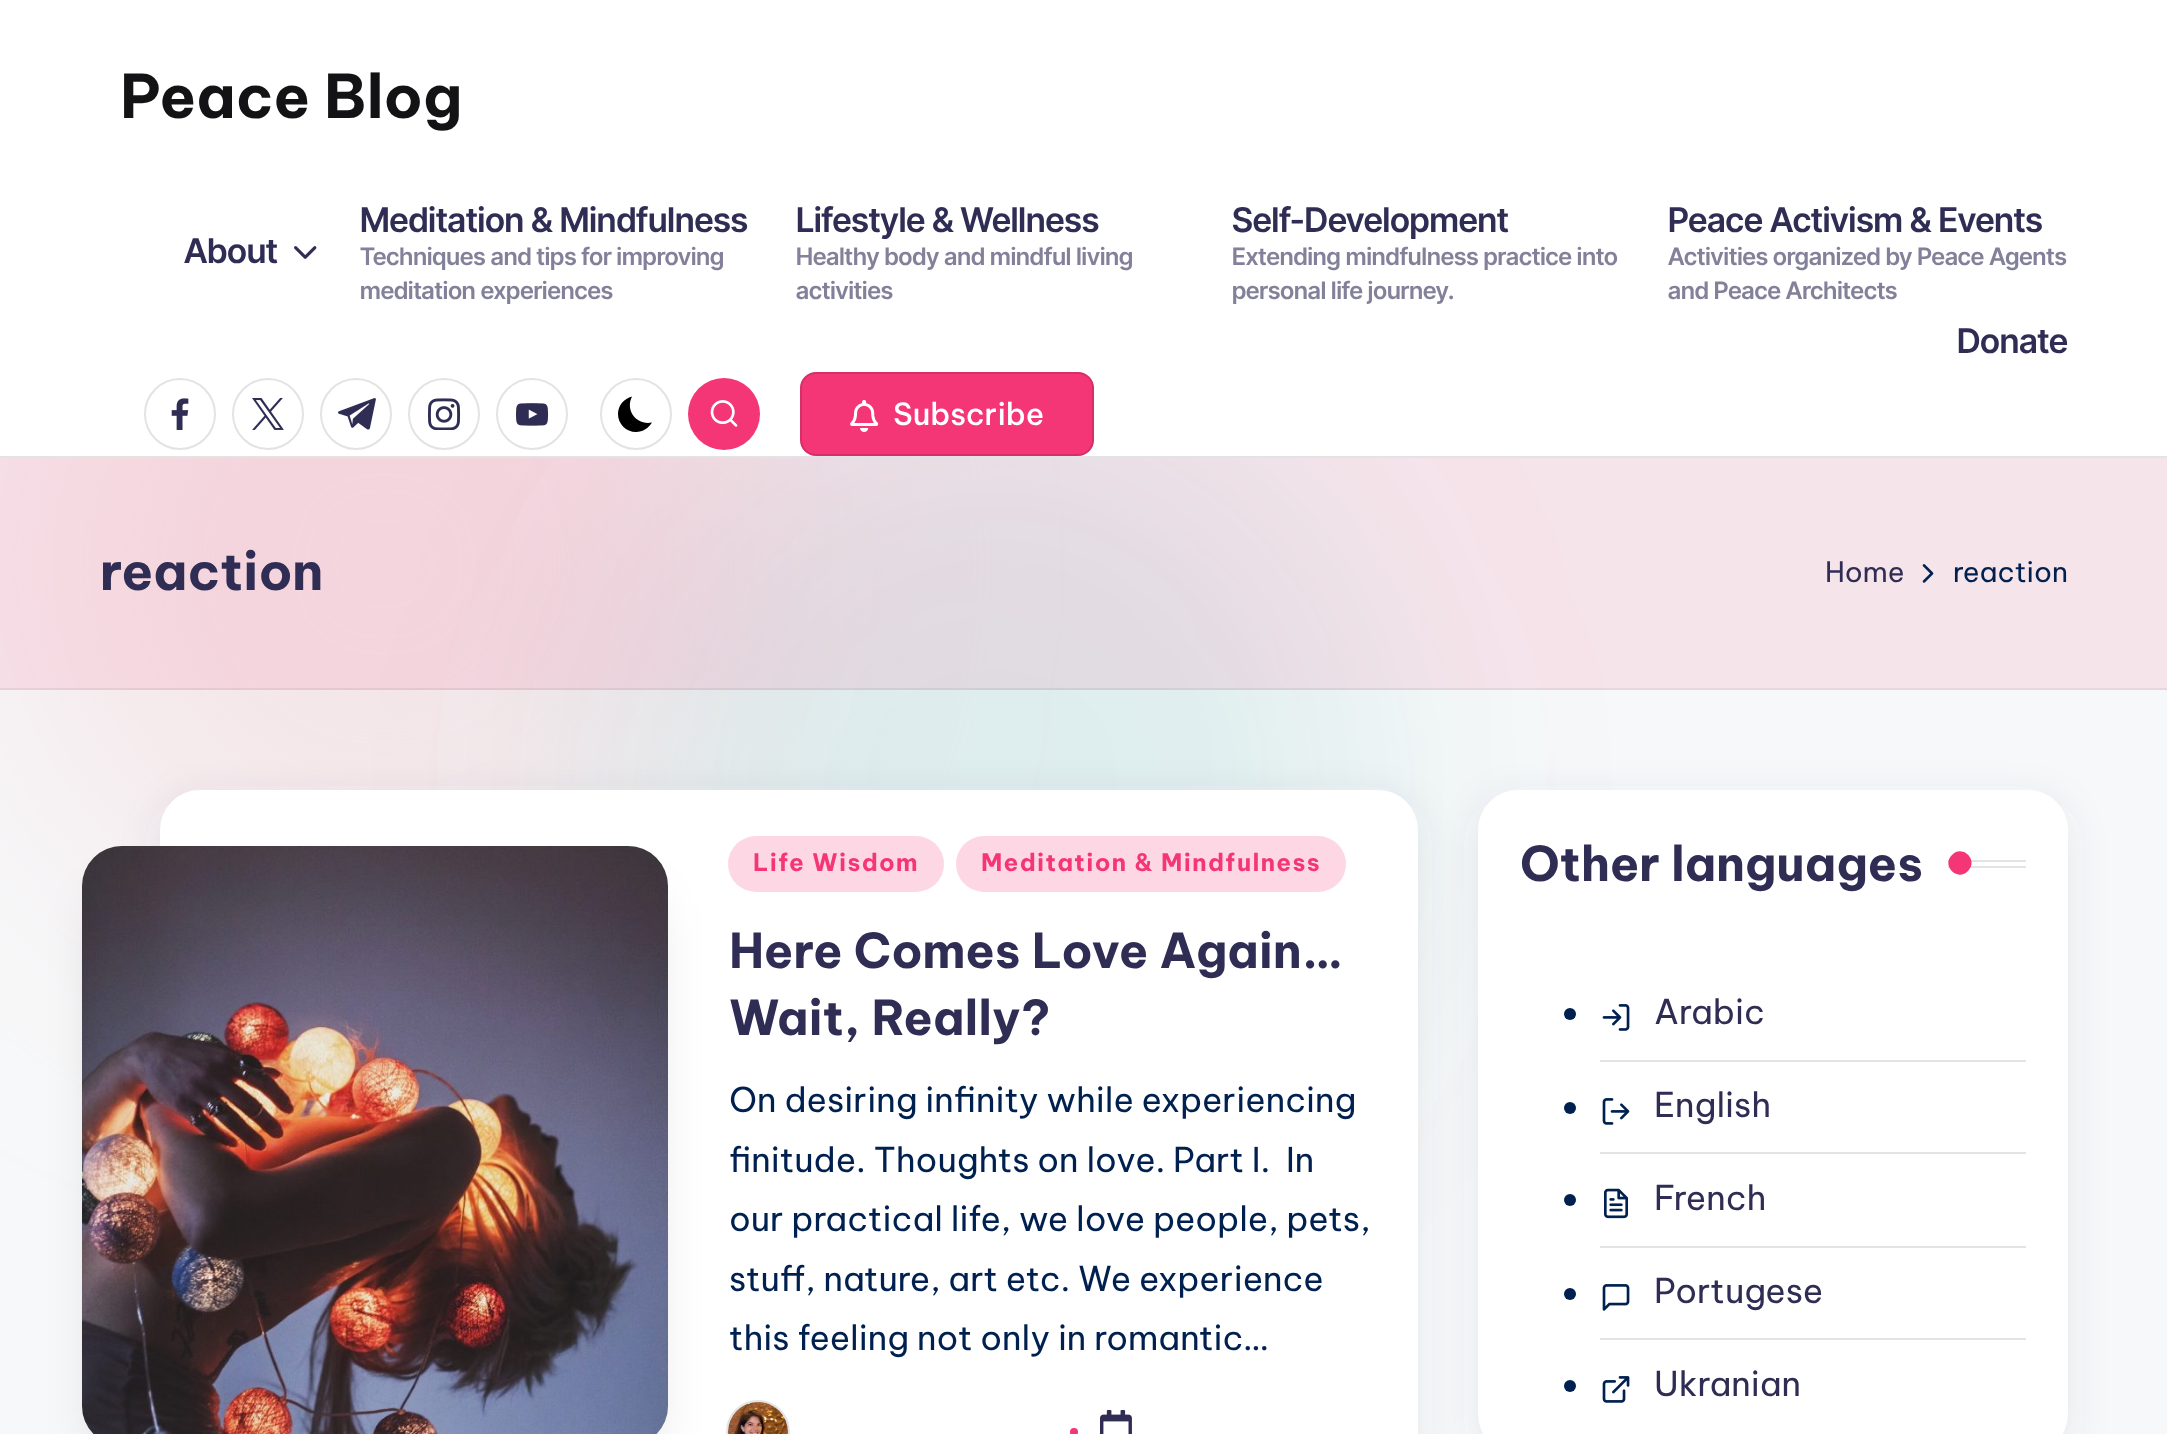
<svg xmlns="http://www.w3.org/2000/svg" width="2167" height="1434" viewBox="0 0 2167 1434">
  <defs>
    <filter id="blur1" x="-50%" y="-200%" width="200%" height="500%"><feGaussianBlur stdDeviation="128"/></filter>
    <filter id="blur2" x="-50%" y="-200%" width="200%" height="500%"><feGaussianBlur stdDeviation="20"/></filter>
    <filter id="blur3" x="-50%" y="-200%" width="200%" height="500%"><feGaussianBlur stdDeviation="28"/></filter>
  </defs>
  <rect width="100%" height="100%" fill="#f7f8f9"/>
  <rect x="0" y="180" width="768" height="768" rx="384" fill="#f4e6e9" filter="url(#blur1)"/>
  <rect x="608" y="400" width="768" height="768" rx="384" fill="#04868b" fill-opacity="0.1" filter="url(#blur1)"/>
  <rect x="0" y="0" width="2167" height="456" fill="#ffffff"/>
  <rect x="0" y="456" width="2167" height="2" fill="#e3e3e3"/>
  <text x="120" y="118" font-family="Be Vietnam Pro" font-size="60" font-weight="bold" fill="#131315">Peace Blog</text>
  <text x="184" y="263" font-family="Inter Tight" font-size="34" font-weight="600" fill="#302d55">About</text>
  <image x="294" y="246" width="23" height="13" href="img1.png"/>
  <text x="360" y="232" font-family="Inter Tight" font-size="34" font-weight="600" fill="#302d55">Meditation &amp; Mindfulness</text>
  <text x="360" y="265" font-family="Inter Tight" font-size="24" font-weight="600" fill="#838199">Techniques and tips for improving</text>
  <text x="360" y="299" font-family="Inter Tight" font-size="24" font-weight="600" fill="#838199">meditation experiences</text>
  <text x="796" y="232" font-family="Inter Tight" font-size="34" font-weight="600" fill="#302d55">Lifestyle &amp; Wellness</text>
  <text x="796" y="265" font-family="Inter Tight" font-size="24" font-weight="600" fill="#838199">Healthy body and mindful living</text>
  <text x="796" y="299" font-family="Inter Tight" font-size="24" font-weight="600" fill="#838199">activities</text>
  <text x="1232" y="232" font-family="Inter Tight" font-size="34" font-weight="600" fill="#302d55">Self-Development</text>
  <text x="1232" y="265" font-family="Inter Tight" font-size="24" font-weight="600" fill="#838199">Extending mindfulness practice into</text>
  <text x="1232" y="299" font-family="Inter Tight" font-size="24" font-weight="600" fill="#838199">personal life journey.</text>
  <text x="1668" y="232" font-family="Inter Tight" font-size="34" font-weight="600" fill="#302d55">Peace Activism &amp; Events</text>
  <text x="1668" y="265" font-family="Inter Tight" font-size="24" font-weight="600" fill="#838199">Activities organized by Peace Agents</text>
  <text x="1668" y="299" font-family="Inter Tight" font-size="24" font-weight="600" fill="#838199">and Peace Architects</text>
  <text x="1957" y="353" font-family="Inter Tight" font-size="34" font-weight="600" fill="#302d55">Donate</text>
  <circle cx="180" cy="414" r="35" fill="none" stroke="#e3e3e3" stroke-width="2"/>
  <image x="171" y="398" width="18" height="32" href="img2.png"/>
  <circle cx="268" cy="414" r="35" fill="none" stroke="#e3e3e3" stroke-width="2"/>
  <image x="252" y="398" width="32" height="32" href="img3.png"/>
  <circle cx="356" cy="414" r="35" fill="none" stroke="#e3e3e3" stroke-width="2"/>
  <image x="338" y="398" width="38" height="32" href="img4.png"/>
  <circle cx="444" cy="414" r="35" fill="none" stroke="#e3e3e3" stroke-width="2"/>
  <image x="428" y="398" width="33" height="32" href="img5.png"/>
  <circle cx="532" cy="414" r="35" fill="none" stroke="#e3e3e3" stroke-width="2"/>
  <image x="516" y="403" width="33" height="23" href="img6.png"/>
  <circle cx="636" cy="414" r="35" fill="none" stroke="#e3e3e3" stroke-width="2"/>
  <path d="M652 422.5C636.5 425.5 625 410.5 632 396.5C624 398.5 618 405.5 618 414C618 424 626 432 636 432C643 432 648.5 428 652 422.5Z" fill="#000000"/>
  <circle cx="724" cy="414" r="36" fill="#f43676"/>
  <image x="710" y="400" width="28" height="27" href="img7.png"/>
  <rect x="800" y="372" width="294" height="84" rx="16" fill="#f43676"/>
  <rect x="801" y="373" width="292" height="82" rx="15" fill="none" stroke="#000000" stroke-opacity="0.12" stroke-width="2"/>
  <image x="850" y="399" width="29" height="33" href="img8.png"/>
  <text x="893" y="425" font-family="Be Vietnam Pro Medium" font-size="30.5" font-weight="500" fill="#ffffff">Subscribe</text>
  <rect x="0" y="458" width="2167" height="232" fill="#f43676" fill-opacity="0.1"/>
  <rect x="0" y="688" width="2167" height="2" fill="#000000" fill-opacity="0.06"/>
  <text x="100" y="590" font-family="Be Vietnam Pro" font-size="52" font-weight="bold" fill="#302d55">reaction</text>
  <text x="1825" y="582" font-family="Be Vietnam Pro" font-size="28" fill="#302d55">Home</text>
  <image x="1922" y="564" width="12" height="19" href="img9.png"/>
  <text x="1953" y="582" font-family="Be Vietnam Pro" font-size="28" fill="#002050">reaction</text>
  <rect x="160" y="800" width="1258" height="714" rx="40" fill="#454360" fill-opacity="0.1" filter="url(#blur2)"/>
  <rect x="160" y="790" width="1258" height="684" rx="40" fill="#ffffff"/>
  <rect x="728" y="836" width="216" height="56" rx="28" fill="#fdd7e4"/>
  <image x="728" y="1402" width="60" height="32" href="img11.png"/>
  <circle cx="758" cy="1432" r="31" fill="none" stroke="#b9b9b9" stroke-opacity="0.4" stroke-width="2"/>
  <rect x="106" y="902" width="538" height="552" rx="16" fill="#000000" fill-opacity="0.18" filter="url(#blur3)"/>
  <rect x="82" y="846" width="586" height="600" rx="40" fill="#d1d1d1"/>
  <image x="82" y="846" width="586" height="588" href="img10.png"/>
  <text x="753" y="871" font-family="Be Vietnam Pro" font-size="24" font-weight="bold" letter-spacing="1.4" fill="#f43676">Life Wisdom</text>
  <rect x="956" y="836" width="390" height="56" rx="28" fill="#fdd7e4"/>
  <text x="981" y="871" font-family="Be Vietnam Pro" font-size="24" font-weight="bold" letter-spacing="1.4" fill="#f43676">Meditation &amp; Mindfulness</text>
  <text x="729" y="968" font-family="Be Vietnam Pro" font-size="48" font-weight="bold" fill="#302d55">Here Comes Love Again…</text>
  <text x="729" y="1035" font-family="Be Vietnam Pro" font-size="48" font-weight="bold" fill="#302d55">Wait, Really?</text>
  <text x="729" y="1112" font-family="Be Vietnam Pro" font-size="34" fill="#002050">On desiring infinity while experiencing</text>
  <text x="729" y="1172" font-family="Be Vietnam Pro" font-size="34" fill="#002050" xml:space="preserve">finitude. Thoughts on love. Part I.  In</text>
  <text x="729" y="1231" font-family="Be Vietnam Pro" font-size="34" fill="#002050">our practical life, we love people, pets,</text>
  <text x="729" y="1291" font-family="Be Vietnam Pro" font-size="34" fill="#002050">stuff, nature, art etc. We experience</text>
  <text x="729" y="1350" font-family="Be Vietnam Pro" font-size="34" fill="#002050">this feeling not only in romantic…</text>
  <circle cx="1074" cy="1432" r="4" fill="#f43676"/>
  <image x="1100" y="1410" width="32" height="24" href="img12.png"/>
  <rect x="1478" y="800" width="590" height="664" rx="40" fill="#454360" fill-opacity="0.1" filter="url(#blur2)"/>
  <rect x="1478" y="790" width="590" height="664" rx="40" fill="#ffffff"/>
  <text x="1520" y="881" font-family="Be Vietnam Pro" font-size="48" font-weight="bold" fill="#302d55">Other languages</text>
  <rect x="1948" y="860" width="78" height="2" fill="#e3e3e3"/>
  <rect x="1948" y="866" width="78" height="2" fill="#e3e3e3"/>
  <path d="M1952 855C1962.5 844 1979 860.5 1968 871C1957.5 882 1941 865.5 1952 855Z" fill="#f43676"/>
  <circle cx="1570" cy="1014" r="6" fill="#002050"/>
  <image x="1602" y="1004" width="28" height="27" href="img13.png"/>
  <text x="1654" y="1024" font-family="Be Vietnam Pro" font-size="34" fill="#302d55">Arabic</text>
  <rect x="1600" y="1060" width="426" height="2" fill="#e3e3e3"/>
  <circle cx="1570" cy="1108" r="6" fill="#002050"/>
  <image x="1602" y="1098" width="28" height="27" href="img14.png"/>
  <text x="1654" y="1117" font-family="Be Vietnam Pro" font-size="34" fill="#302d55">English</text>
  <rect x="1600" y="1152" width="426" height="2" fill="#e3e3e3"/>
  <circle cx="1570" cy="1200" r="6" fill="#002050"/>
  <image x="1604" y="1188" width="25" height="31" href="img15.png"/>
  <text x="1654" y="1210" font-family="Be Vietnam Pro" font-size="34" fill="#302d55">French</text>
  <rect x="1600" y="1246" width="426" height="2" fill="#e3e3e3"/>
  <circle cx="1570" cy="1294" r="6" fill="#002050"/>
  <image x="1602" y="1284" width="28" height="27" href="img16.png"/>
  <text x="1654" y="1303" font-family="Be Vietnam Pro" font-size="34" fill="#302d55">Portugese</text>
  <rect x="1600" y="1338" width="426" height="2" fill="#e3e3e3"/>
  <circle cx="1570" cy="1386" r="6" fill="#002050"/>
  <image x="1602" y="1376" width="28" height="27" href="img17.png"/>
  <text x="1654" y="1396" font-family="Be Vietnam Pro" font-size="34" fill="#302d55">Ukranian</text>
</svg>
